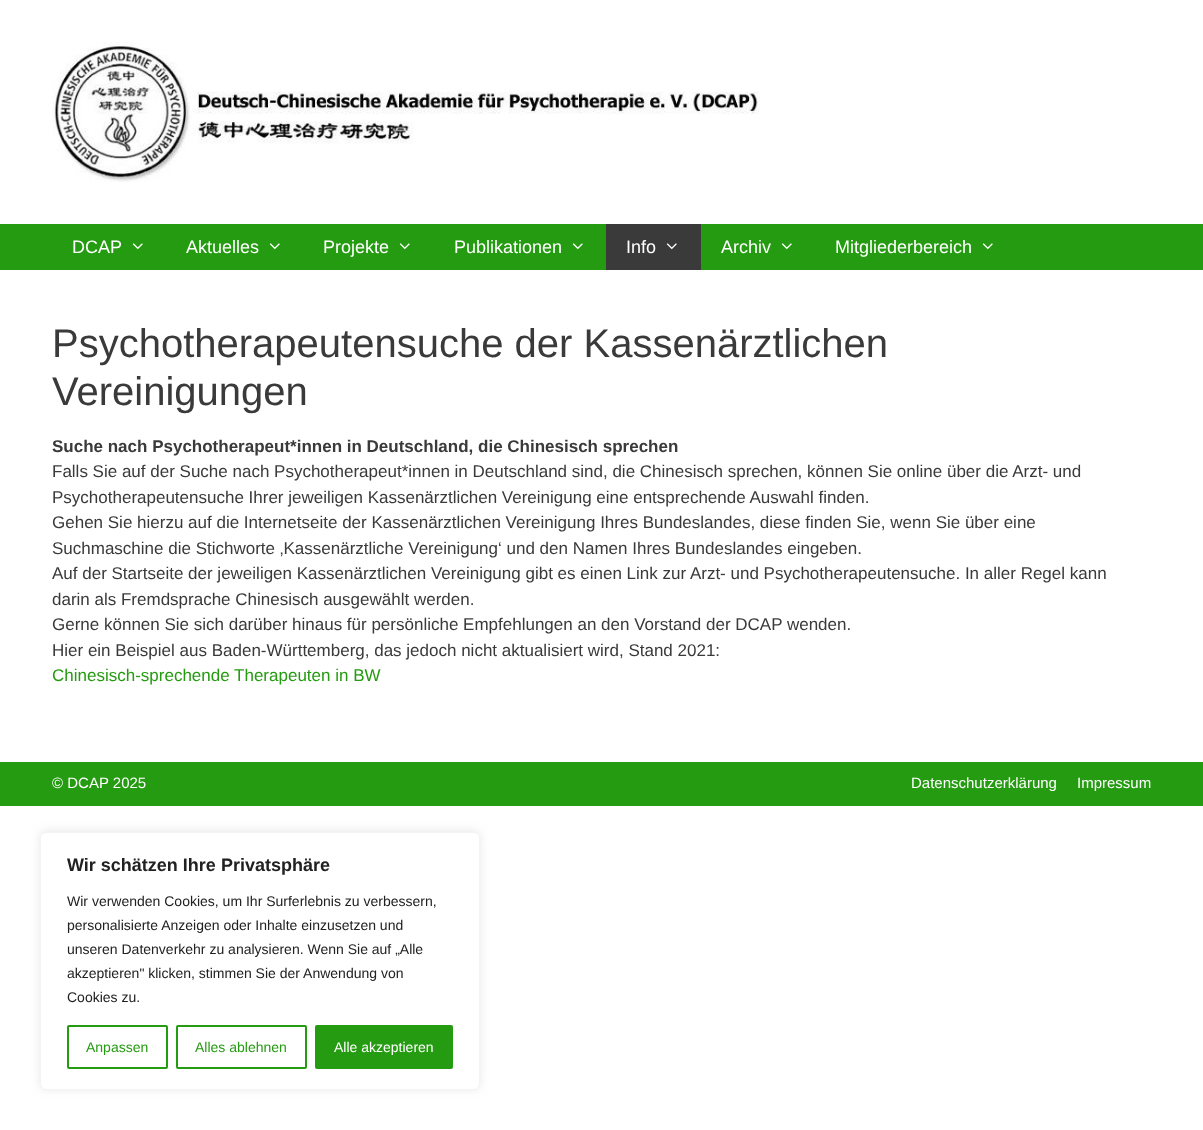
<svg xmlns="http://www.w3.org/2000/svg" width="1203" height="1130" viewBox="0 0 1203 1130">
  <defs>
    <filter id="blur1" x="-50%" y="-200%" width="200%" height="500%"><feGaussianBlur stdDeviation="5"/></filter>
  </defs>
  <rect width="100%" height="100%" fill="#ffffff"/>
  <image x="52" y="42" width="708" height="140" href="img1.png"/>
  <rect x="0" y="224" width="1203" height="46" fill="#259b11"/>
  <text x="72" y="253" font-family="Liberation Sans" font-size="18" fill="#ffffff">DCAP</text>
  <image x="132" y="243" width="11" height="7" href="img2.png"/>
  <text x="186" y="253" font-family="Liberation Sans" font-size="18" fill="#ffffff">Aktuelles</text>
  <image x="269" y="243" width="11" height="7" href="img2.png"/>
  <text x="323" y="253" font-family="Liberation Sans" font-size="18" fill="#ffffff">Projekte</text>
  <image x="399" y="243" width="11" height="7" href="img2.png"/>
  <text x="454" y="253" font-family="Liberation Sans" font-size="18" fill="#ffffff">Publikationen</text>
  <image x="572" y="243" width="11" height="7" href="img2.png"/>
  <rect x="606" y="224" width="95" height="46" fill="#3a3a3a"/>
  <text x="626" y="253" font-family="Liberation Sans" font-size="18" fill="#ffffff">Info</text>
  <image x="666" y="243" width="11" height="7" href="img3.png"/>
  <text x="721" y="253" font-family="Liberation Sans" font-size="18" fill="#ffffff">Archiv</text>
  <image x="781" y="243" width="11" height="7" href="img2.png"/>
  <text x="835" y="253" font-family="Liberation Sans" font-size="18" fill="#ffffff">Mitgliederbereich</text>
  <image x="982" y="243" width="11" height="7" href="img2.png"/>
  <text x="52" y="357" font-family="Liberation Sans" font-size="40" fill="#3a3a3a">Psychotherapeutensuche der Kassenärztlichen</text>
  <text x="52" y="405" font-family="Liberation Sans" font-size="40" fill="#3a3a3a">Vereinigungen</text>
  <text x="52" y="452" font-family="Liberation Sans" font-size="17" font-weight="bold" fill="#3a3a3a">Suche nach Psychotherapeut*innen in Deutschland, die Chinesisch sprechen</text>
  <text x="52" y="477" font-family="Liberation Sans" font-size="17" fill="#3a3a3a">Falls Sie auf der Suche nach Psychotherapeut*innen in Deutschland sind, die Chinesisch sprechen, können Sie online über die Arzt- und</text>
  <text x="52" y="503" font-family="Liberation Sans" font-size="17" fill="#3a3a3a">Psychotherapeutensuche Ihrer jeweiligen Kassenärztlichen Vereinigung eine entsprechende Auswahl finden.</text>
  <text x="52" y="528" font-family="Liberation Sans" font-size="17" fill="#3a3a3a">Gehen Sie hierzu auf die Internetseite der Kassenärztlichen Vereinigung Ihres Bundeslandes, diese finden Sie, wenn Sie über eine</text>
  <text x="52" y="554" font-family="Liberation Sans" font-size="17" fill="#3a3a3a">Suchmaschine die Stichworte ‚Kassenärztliche Vereinigung‘ und den Namen Ihres Bundeslandes eingeben.</text>
  <text x="52" y="579" font-family="Liberation Sans" font-size="17" fill="#3a3a3a">Auf der Startseite der jeweiligen Kassenärztlichen Vereinigung gibt es einen Link zur Arzt- und Psychotherapeutensuche. In aller Regel kann</text>
  <text x="52" y="605" font-family="Liberation Sans" font-size="17" fill="#3a3a3a">darin als Fremdsprache Chinesisch ausgewählt werden.</text>
  <text x="52" y="630" font-family="Liberation Sans" font-size="17" fill="#3a3a3a">Gerne können Sie sich darüber hinaus für persönliche Empfehlungen an den Vorstand der DCAP wenden.</text>
  <text x="52" y="656" font-family="Liberation Sans" font-size="17" fill="#3a3a3a">Hier ein Beispiel aus Baden-Württemberg, das jedoch nicht aktualisiert wird, Stand 2021:</text>
  <text x="52" y="681" font-family="Liberation Sans" font-size="17" fill="#259b11">Chinesisch-sprechende Therapeuten in BW</text>
  <rect x="0" y="762" width="1203" height="44" fill="#259b11"/>
  <text x="52" y="788" font-family="Liberation Sans" font-size="15" fill="#ffffff">© DCAP 2025</text>
  <text x="911" y="788" font-family="Liberation Sans" font-size="15" fill="#ffffff">Datenschutzerklärung</text>
  <text x="1077" y="788" font-family="Liberation Sans" font-size="15" fill="#ffffff">Impressum</text>
  <rect x="40" y="831" width="440" height="258" rx="6" fill="#acabab" fill-opacity="0.3" filter="url(#blur1)"/>
  <rect x="40.5" y="832.5" width="439" height="257" rx="5.5" fill="#ffffff" stroke="#f4f4f4"/>
  <text x="67" y="871" font-family="Liberation Sans" font-size="18" font-weight="bold" fill="#212121">Wir schätzen Ihre Privatsphäre</text>
  <text x="67" y="906" font-family="Liberation Sans" font-size="14" fill="#212121">Wir verwenden Cookies, um Ihr Surferlebnis zu verbessern,</text>
  <text x="67" y="930" font-family="Liberation Sans" font-size="14" fill="#212121">personalisierte Anzeigen oder Inhalte einzusetzen und</text>
  <text x="67" y="954" font-family="Liberation Sans" font-size="14" fill="#212121">unseren Datenverkehr zu analysieren. Wenn Sie auf „Alle</text>
  <text x="67" y="978" font-family="Liberation Sans" font-size="14" fill="#212121">akzeptieren" klicken, stimmen Sie der Anwendung von</text>
  <text x="67" y="1002" font-family="Liberation Sans" font-size="14" fill="#212121">Cookies zu.</text>
  <rect x="68" y="1026" width="99" height="42" rx="1" fill="none" stroke="#259b11" stroke-width="2"/>
  <text x="86" y="1052" font-family="Liberation Sans" font-size="14" fill="#259b11">Anpassen</text>
  <rect x="177" y="1026" width="129" height="42" rx="1" fill="none" stroke="#259b11" stroke-width="2"/>
  <text x="195" y="1052" font-family="Liberation Sans" font-size="14" fill="#259b11">Alles ablehnen</text>
  <rect x="316" y="1026" width="136" height="42" rx="1" fill="#259b11" stroke="#259b11" stroke-width="2"/>
  <text x="334" y="1052" font-family="Liberation Sans" font-size="14" fill="#ffffff">Alle akzeptieren</text>
</svg>
